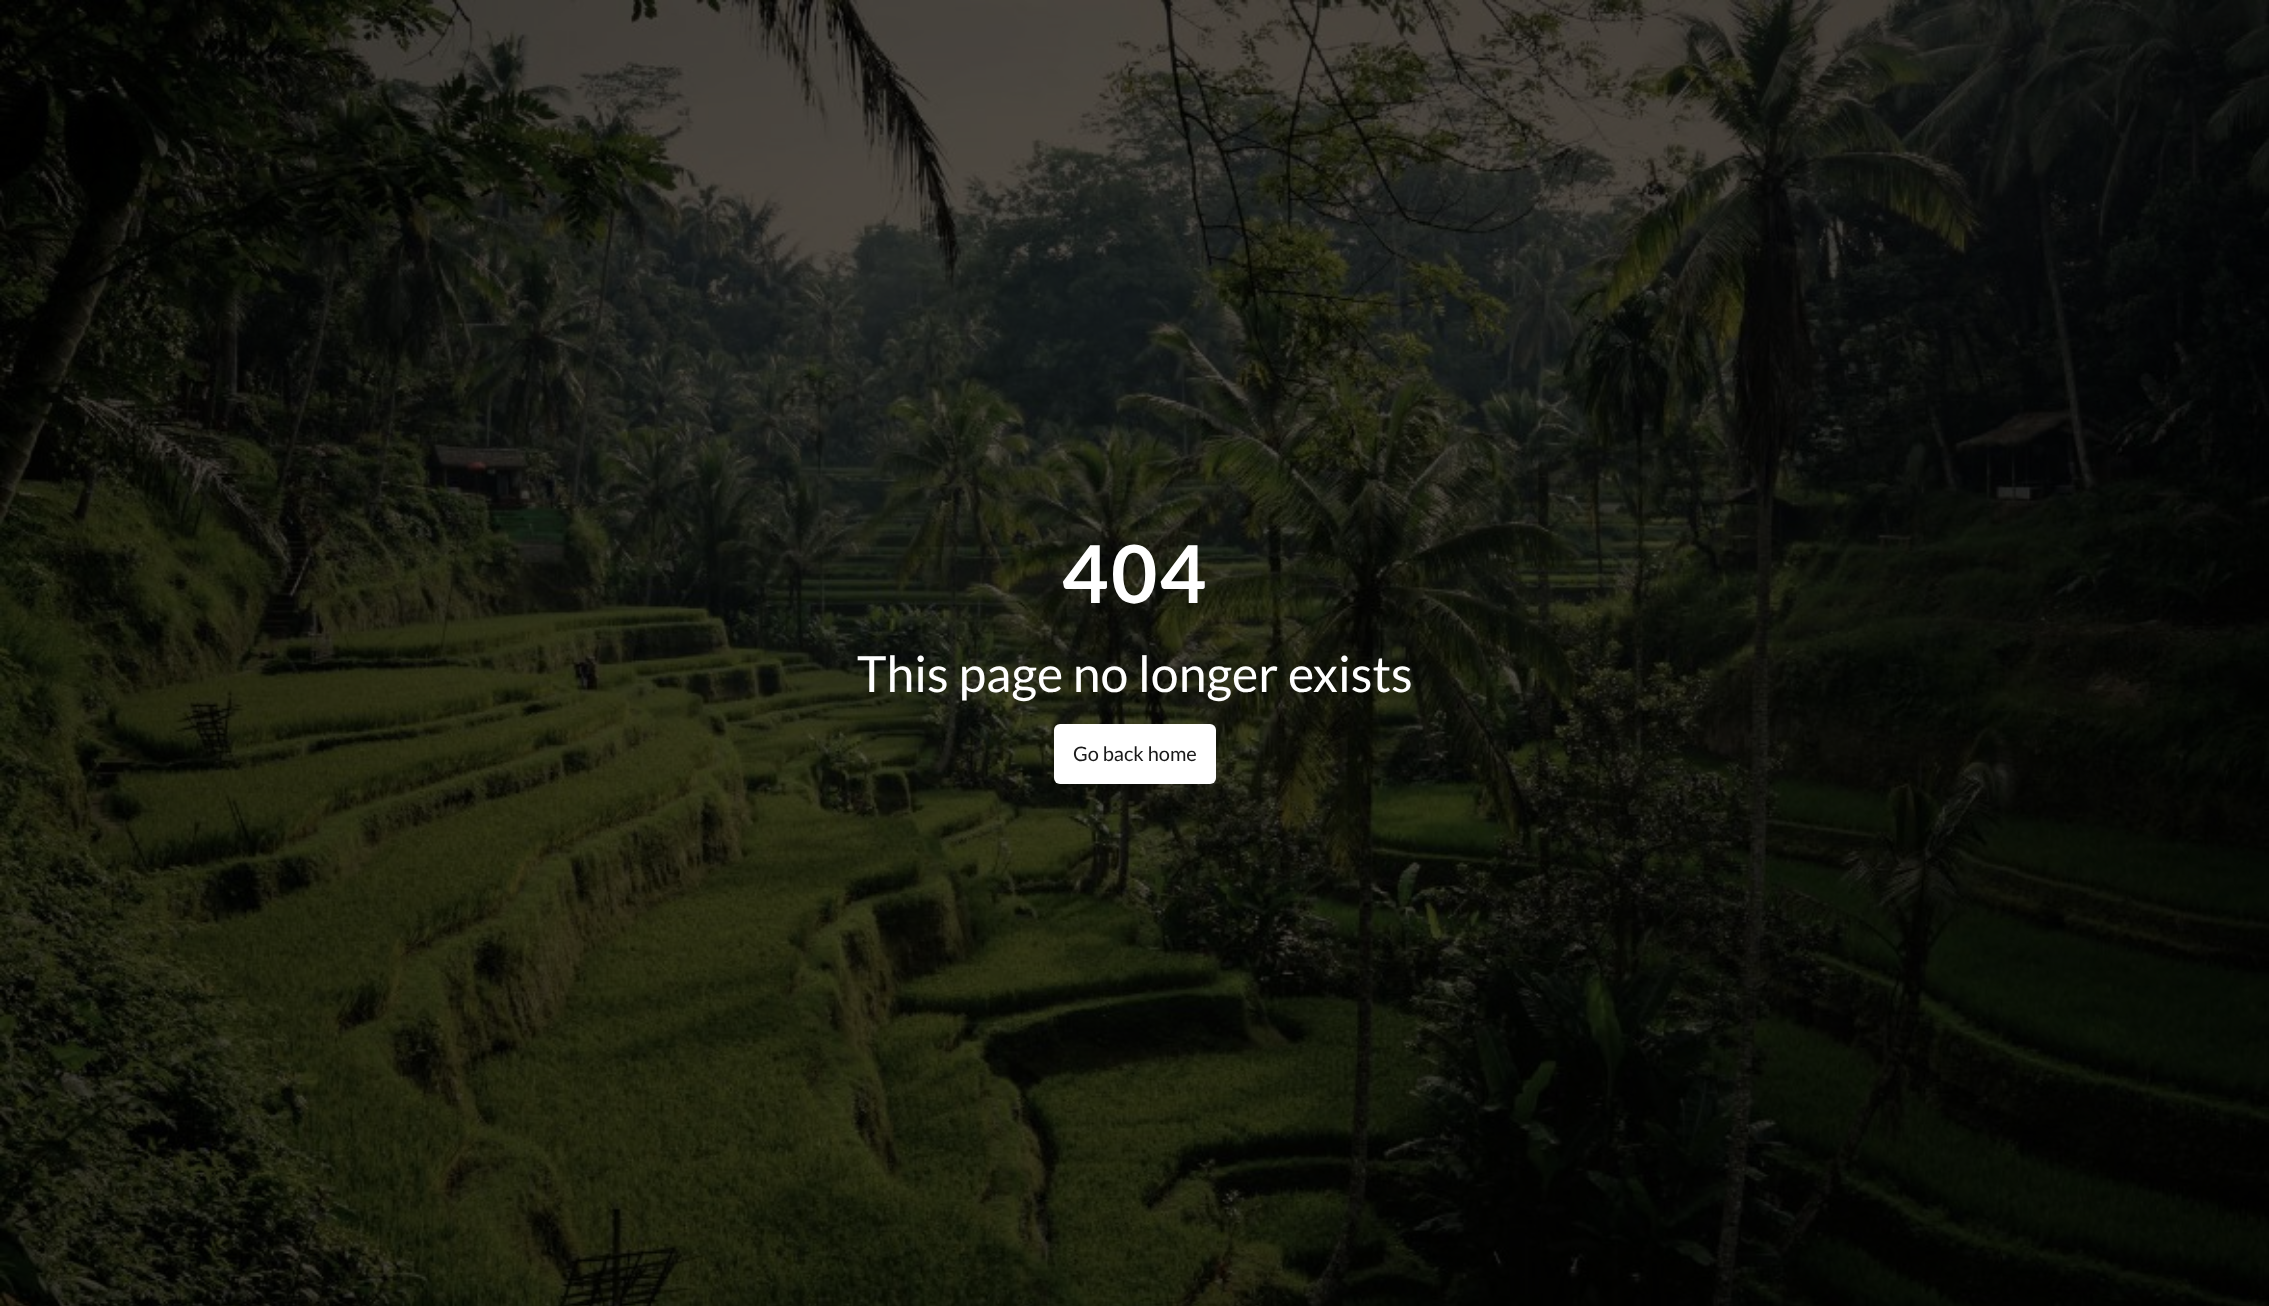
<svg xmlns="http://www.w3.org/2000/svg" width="2269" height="1306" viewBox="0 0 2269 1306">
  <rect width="100%" height="100%" fill="#ffffff"/>
  <image x="0" y="0" width="2269" height="1306" href="img1.png"/>
  <text x="1062" y="603" font-family="Lato" font-size="80" font-weight="bold" letter-spacing="2.5" fill="#ffffff">404</text>
  <text x="857" y="692" font-family="Lato" font-size="50" fill="#ffffff">This page no longer exists</text>
  <rect x="1054" y="724" width="162" height="60" rx="6" fill="#ffffff"/>
  <text x="1073" y="761" font-family="Lato" font-size="20" fill="#1a1a1a">Go back home</text>
</svg>
